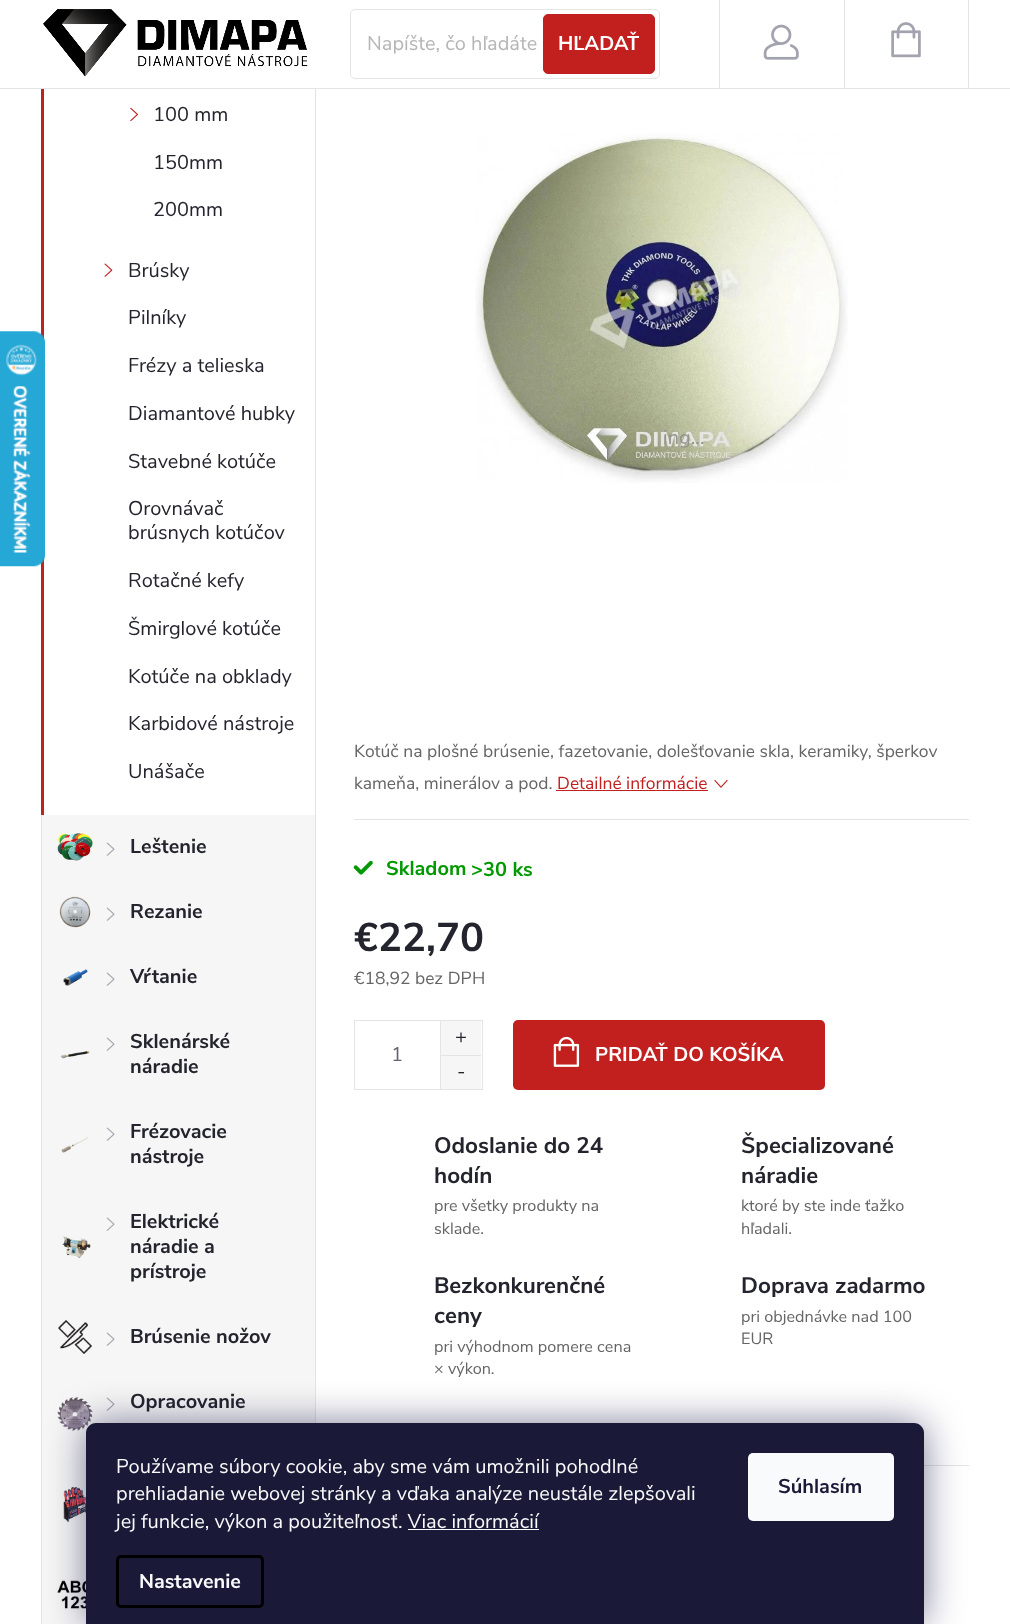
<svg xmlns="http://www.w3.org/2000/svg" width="1010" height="1624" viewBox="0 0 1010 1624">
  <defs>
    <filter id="blur1" x="-50%" y="-200%" width="200%" height="500%"><feGaussianBlur stdDeviation="19"/></filter>
  </defs>
  <rect width="100%" height="100%" fill="#ffffff"/>
  <rect x="42" y="815" width="273" height="809" fill="#f6f6f6"/>
  <rect x="41.5" y="-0.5" width="274" height="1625" fill="none" stroke="#e4e4e4"/>
  <rect x="41" y="89" width="3" height="726" fill="#c21f1f"/>
  <image x="0" y="331" width="45" height="236" href="img1.png"/>
  <rect x="41" y="0" width="275" height="88" fill="#ffffff"/>
  <rect x="0" y="88" width="1010" height="1" fill="#e4e4e4"/>
  <image x="43" y="9" width="265" height="68" href="img2.png"/>
  <rect x="350.5" y="9.5" width="309" height="69" rx="4.5" fill="none" stroke="#e4e4e4"/>
  <text x="367" y="50" font-family="Nunito Sans" font-size="20" fill="#b6b6b6">Napíšte, čo hľadáte</text>
  <rect x="543.5" y="14.5" width="111" height="59" rx="4.5" fill="#c21f1f" stroke="#c21f1f"/>
  <text x="558" y="50" font-family="Nunito Sans" font-size="20" font-weight="bold" fill="#ffffff">HĽADAŤ</text>
  <rect x="719" y="0" width="1" height="88" fill="#e4e4e4"/>
  <image x="763" y="24" width="36" height="36" href="img3.png"/>
  <rect x="968" y="0" width="1" height="88" fill="#e4e4e4"/>
  <rect x="844" y="0" width="1" height="88" fill="#e4e4e4"/>
  <image x="891" y="22" width="30" height="36" href="img4.png"/>
  <image x="130" y="107" width="8" height="15" href="img5.png"/>
  <text x="153" y="121" font-family="Nunito Sans" font-size="20" fill="#24242e">100 mm</text>
  <text x="153" y="169" font-family="Nunito Sans" font-size="20" fill="#24242e">150mm</text>
  <text x="153" y="216" font-family="Nunito Sans" font-size="20" fill="#24242e">200mm</text>
  <image x="104" y="263" width="9" height="14" href="img6.png"/>
  <text x="128" y="277" font-family="Nunito Sans" font-size="20" fill="#24242e">Brúsky</text>
  <text x="128" y="324" font-family="Nunito Sans" font-size="20" fill="#24242e">Pilníky</text>
  <text x="128" y="372" font-family="Nunito Sans" font-size="20" fill="#24242e">Frézy a telieska</text>
  <text x="128" y="420" font-family="Nunito Sans" font-size="20" fill="#24242e">Diamantové hubky</text>
  <text x="128" y="468" font-family="Nunito Sans" font-size="20" fill="#24242e">Stavebné kotúče</text>
  <text x="128" y="515" font-family="Nunito Sans" font-size="20" fill="#24242e">Orovnávač</text>
  <text x="128" y="539" font-family="Nunito Sans" font-size="20" fill="#24242e">brúsnych kotúčov</text>
  <text x="128" y="587" font-family="Nunito Sans" font-size="20" fill="#24242e">Rotačné kefy</text>
  <text x="128" y="635" font-family="Nunito Sans" font-size="20" fill="#24242e">Šmirglové kotúče</text>
  <text x="128" y="683" font-family="Nunito Sans" font-size="20" fill="#24242e">Kotúče na obklady</text>
  <text x="128" y="730" font-family="Nunito Sans" font-size="20" fill="#24242e">Karbidové nástroje</text>
  <text x="128" y="778" font-family="Nunito Sans" font-size="20" fill="#24242e">Unášače</text>
  <image x="57" y="833" width="36" height="28" href="img7.png"/>
  <image x="106" y="842" width="9" height="14" href="img8.png"/>
  <text x="130" y="853" font-family="Nunito Sans" font-size="20" font-weight="bold" fill="#24242e">Leštenie</text>
  <image x="59" y="896" width="32" height="32" href="img9.png"/>
  <image x="106" y="907" width="9" height="14" href="img8.png"/>
  <text x="130" y="918" font-family="Nunito Sans" font-size="20" font-weight="bold" fill="#24242e">Rezanie</text>
  <image x="63" y="969" width="25" height="17" href="img10.png"/>
  <image x="106" y="972" width="9" height="14" href="img8.png"/>
  <text x="130" y="983" font-family="Nunito Sans" font-size="20" font-weight="bold" fill="#24242e">Vŕtanie</text>
  <image x="106" y="1037" width="9" height="14" href="img8.png"/>
  <text x="130" y="1048" font-family="Nunito Sans" font-size="20" font-weight="bold" fill="#24242e">Sklenárské</text>
  <image x="60" y="1051" width="30" height="8" href="img11.png"/>
  <text x="130" y="1073" font-family="Nunito Sans" font-size="20" font-weight="bold" fill="#24242e">náradie</text>
  <image x="106" y="1127" width="9" height="14" href="img8.png"/>
  <text x="130" y="1138" font-family="Nunito Sans" font-size="20" font-weight="bold" fill="#24242e">Frézovacie</text>
  <image x="61" y="1137" width="28" height="16" href="img12.png"/>
  <text x="130" y="1163" font-family="Nunito Sans" font-size="20" font-weight="bold" fill="#24242e">nástroje</text>
  <image x="106" y="1217" width="9" height="14" href="img8.png"/>
  <text x="130" y="1228" font-family="Nunito Sans" font-size="20" font-weight="bold" fill="#24242e">Elektrické</text>
  <image x="60" y="1236" width="31" height="22" href="img13.png"/>
  <text x="130" y="1253" font-family="Nunito Sans" font-size="20" font-weight="bold" fill="#24242e">náradie a</text>
  <text x="130" y="1278" font-family="Nunito Sans" font-size="20" font-weight="bold" fill="#24242e">prístroje</text>
  <image x="58" y="1320" width="34" height="34" href="img14.png"/>
  <image x="106" y="1332" width="9" height="14" href="img8.png"/>
  <text x="130" y="1343" font-family="Nunito Sans" font-size="20" font-weight="bold" fill="#24242e">Brúsenie nožov</text>
  <image x="57" y="1397" width="36" height="34" href="img15.png"/>
  <image x="106" y="1397" width="9" height="14" href="img8.png"/>
  <text x="130" y="1408" font-family="Nunito Sans" font-size="20" font-weight="bold" fill="#24242e">Opracovanie</text>
  <image x="63" y="1487" width="23" height="35" href="img16.png"/>
  <image x="57" y="1580" width="29" height="29" href="img17.png"/>
  <image x="475" y="133" width="373" height="350" href="img18.png"/>
  <text x="663" y="444" font-family="Nunito Sans" font-size="20" fill="#94958d">ing...</text>
  <rect x="354" y="819" width="615" height="1" fill="#e4e4e4"/>
  <text x="354" y="757" font-family="Nunito Sans" font-size="17.5" fill="#656565">Kotúč na plošné brúsenie, fazetovanie, dolešťovanie skla, keramiky, šperkov</text>
  <text x="354" y="789" font-family="Nunito Sans" font-size="17.5" fill="#656565">kameňa, minerálov a pod.</text>
  <text x="557" y="789" font-family="Nunito Sans" font-size="17.5" fill="#c21f1f">Detailné informácie</text>
  <rect x="556" y="790" width="152" height="1" fill="#c21f1f"/>
  <image x="714" y="780" width="14" height="8" href="img19.png"/>
  <image x="353" y="860" width="20" height="15" href="img20.png"/>
  <text x="386" y="875" font-family="Nunito Sans" font-size="20" font-weight="bold" fill="#009901">Skladom</text>
  <text x="471" y="876" font-family="Nunito Sans" font-size="20" font-weight="bold" fill="#009901">&gt;30 ks</text>
  <text x="354" y="951" font-family="Nunito Sans" font-size="40" font-weight="bold" fill="#24242e">€22,70</text>
  <text x="354" y="984" font-family="Nunito Sans" font-size="17.5" fill="#656565">€18,92 bez DPH</text>
  <rect x="354.5" y="1020.5" width="128" height="69" fill="none" stroke="#e4e4e4"/>
  <rect x="441" y="1021" width="40" height="34" fill="#f6f6f6"/>
  <rect x="440" y="1021" width="1" height="34" fill="#e4e4e4"/>
  <text x="455" y="1043" font-family="Nunito Sans" font-size="20" fill="#24242e">+</text>
  <text x="391" y="1061" font-family="Nunito Sans" font-size="20" fill="#656570">1</text>
  <rect x="441" y="1056" width="40" height="33" fill="#f6f6f6"/>
  <rect x="440" y="1055" width="41" height="1" fill="#e4e4e4"/>
  <rect x="440" y="1055" width="1" height="34" fill="#e4e4e4"/>
  <text x="457" y="1078" font-family="Nunito Sans" font-size="20" fill="#24242e">-</text>
  <rect x="513" y="1020" width="312" height="70" rx="5" fill="#c21f1f"/>
  <image x="553" y="1036" width="27" height="31" href="img21.png"/>
  <text x="595" y="1061" font-family="Nunito Sans" font-size="20" font-weight="bold" fill="#ffffff">PRIDAŤ DO KOŠÍKA</text>
  <text x="434" y="1153" font-family="Nunito Sans" font-size="22.5" font-weight="bold" fill="#24242e">Odoslanie do 24</text>
  <text x="434" y="1183" font-family="Nunito Sans" font-size="22.5" font-weight="bold" fill="#24242e">hodín</text>
  <text x="434" y="1211" font-family="Nunito Sans" font-size="16.25" fill="#656565">pre všetky produkty na</text>
  <text x="434" y="1234" font-family="Nunito Sans" font-size="16.25" fill="#656565">sklade.</text>
  <text x="741" y="1153" font-family="Nunito Sans" font-size="22.5" font-weight="bold" fill="#24242e">Špecializované</text>
  <text x="741" y="1183" font-family="Nunito Sans" font-size="22.5" font-weight="bold" fill="#24242e">náradie</text>
  <text x="741" y="1211" font-family="Nunito Sans" font-size="16.25" fill="#656565">ktoré by ste inde ťažko</text>
  <text x="741" y="1234" font-family="Nunito Sans" font-size="16.25" fill="#656565">hľadali.</text>
  <text x="434" y="1293" font-family="Nunito Sans" font-size="22.5" font-weight="bold" fill="#24242e">Bezkonkurenčné</text>
  <text x="434" y="1323" font-family="Nunito Sans" font-size="22.5" font-weight="bold" fill="#24242e">ceny</text>
  <text x="434" y="1352" font-family="Nunito Sans" font-size="16.25" fill="#656565">pri výhodnom pomere cena</text>
  <text x="434" y="1374" font-family="Nunito Sans" font-size="16.25" fill="#656565">× výkon.</text>
  <text x="741" y="1293" font-family="Nunito Sans" font-size="22.5" font-weight="bold" fill="#24242e">Doprava zadarmo</text>
  <text x="741" y="1322" font-family="Nunito Sans" font-size="16.25" fill="#656565">pri objednávke nad 100</text>
  <text x="741" y="1344" font-family="Nunito Sans" font-size="16.25" fill="#656565">EUR</text>
  <rect x="924" y="1465" width="45" height="1" fill="#e4e4e4"/>
  <rect x="86" y="1423" width="838" height="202" rx="10" fill="#1b1939" fill-opacity="0.5" filter="url(#blur1)"/>
  <path d="M96 1423H914C919.5 1423 924 1427.5 924 1433V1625H86V1433C86 1427.5 90.5 1423 96 1423Z" fill="#1a1937"/>
  <text x="116" y="1473" font-family="Nunito Sans" font-size="20" fill="#f8fafb">Používame súbory cookie, aby sme vám umožnili pohodlné</text>
  <text x="116" y="1500" font-family="Nunito Sans" font-size="20" fill="#f8fafb">prehliadanie webovej stránky a vďaka analýze neustále zlepšovali</text>
  <text x="116" y="1528" font-family="Nunito Sans" font-size="20" fill="#f8fafb">jej funkcie, výkon a použiteľnosť. Viac informácií</text>
  <rect x="408" y="1529" width="131" height="1" fill="#f8fafb"/>
  <rect x="117.5" y="1556.5" width="145" height="50" rx="3.5" fill="none" stroke="#000000" stroke-width="3"/>
  <text x="139" y="1588" font-family="Nunito Sans" font-size="20" font-weight="bold" fill="#f8fafb">Nastavenie</text>
  <rect x="748" y="1453" width="146" height="68" rx="5" fill="#f8fafb"/>
  <text x="778" y="1493" font-family="Nunito Sans" font-size="20" font-weight="bold" fill="#1a1937">Súhlasím</text>
</svg>
